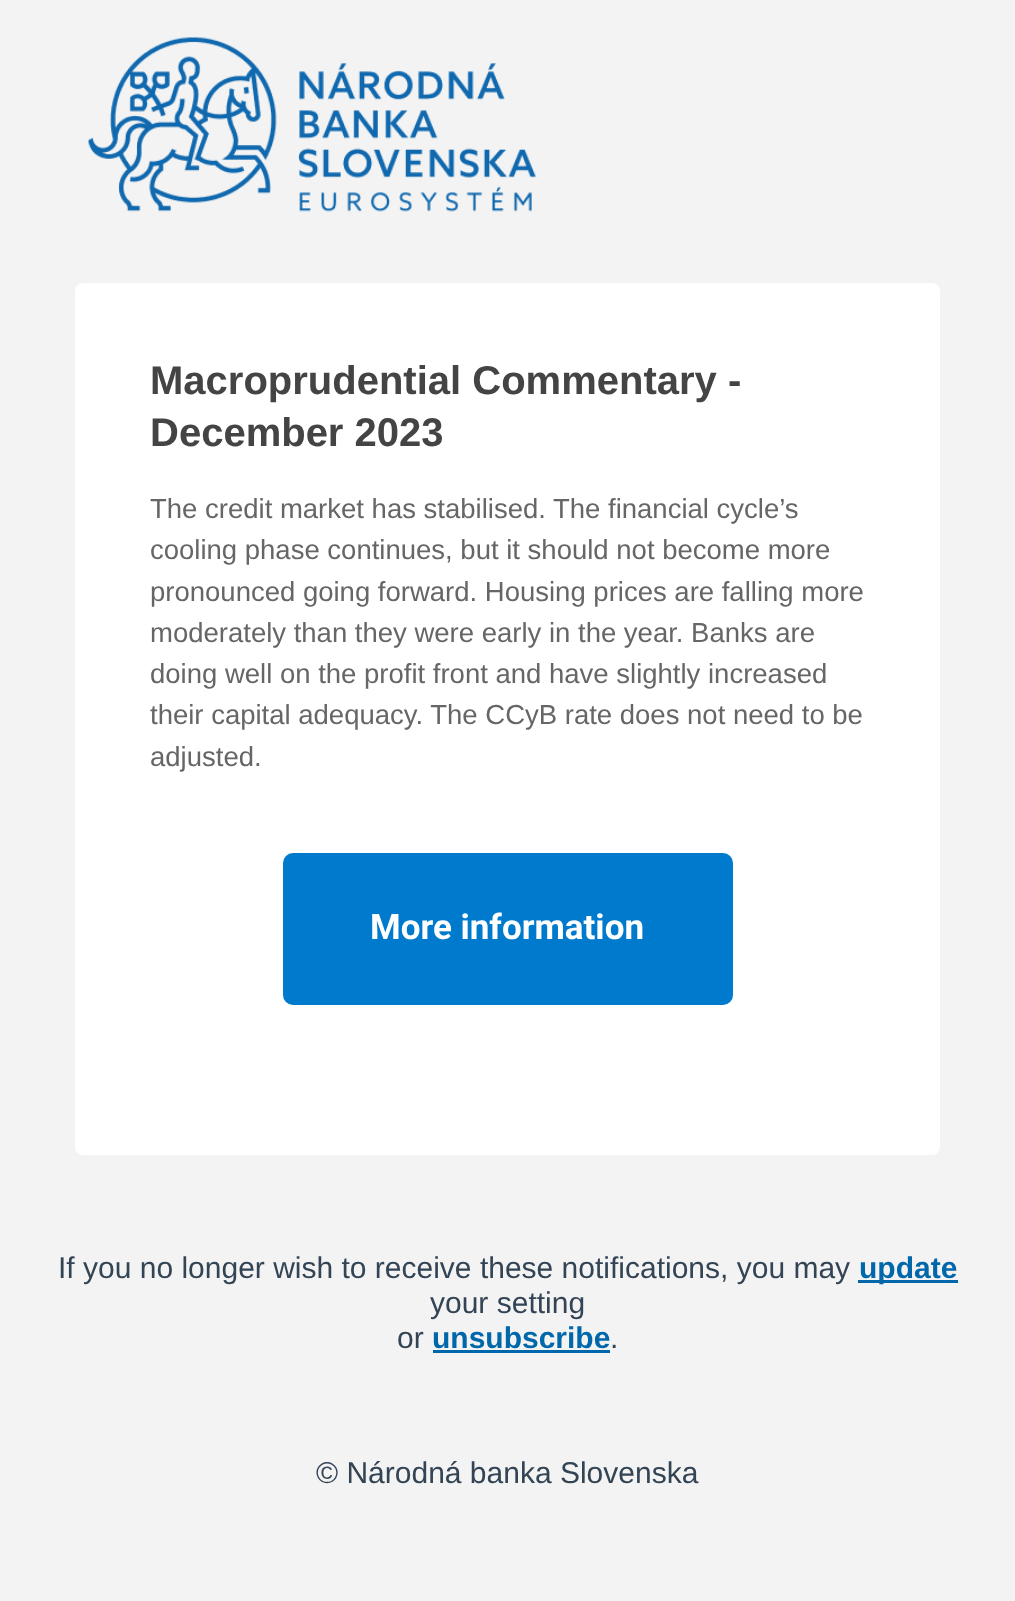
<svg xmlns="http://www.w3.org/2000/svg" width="1015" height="1601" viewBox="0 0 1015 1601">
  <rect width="100%" height="100%" fill="#f3f3f3"/>
  <image x="87" y="37" width="450" height="175" href="img1.png"/>
  <rect x="75" y="283" width="865" height="872" rx="8" fill="#ffffff"/>
  <text x="150" y="394" font-family="Liberation Sans" font-size="40" font-weight="bold" fill="#444444">Macroprudential Commentary -</text>
  <text x="150" y="446" font-family="Liberation Sans" font-size="40" font-weight="bold" fill="#444444">December 2023</text>
  <text x="150" y="518" font-family="Liberation Sans" font-size="27.5" fill="#666666">The credit market has stabilised. The financial cycle’s</text>
  <text x="150" y="559" font-family="Liberation Sans" font-size="27.5" fill="#666666">cooling phase continues, but it should not become more</text>
  <text x="150" y="601" font-family="Liberation Sans" font-size="27.5" fill="#666666">pronounced going forward. Housing prices are falling more</text>
  <text x="150" y="642" font-family="Liberation Sans" font-size="27.5" fill="#666666">moderately than they were early in the year. Banks are</text>
  <text x="150" y="683" font-family="Liberation Sans" font-size="27.5" fill="#666666">doing well on the profit front and have slightly increased</text>
  <text x="150" y="724" font-family="Liberation Sans" font-size="27.5" fill="#666666">their capital adequacy. The CCyB rate does not need to be</text>
  <text x="150" y="766" font-family="Liberation Sans" font-size="27.5" fill="#666666">adjusted.</text>
  <rect x="283" y="853" width="450" height="152" rx="10" fill="#007acc"/>
  <text x="370" y="939" font-family="Roboto" font-size="35" font-weight="bold" fill="#ffffff">More information</text>
  <text x="58" y="1278" font-family="Liberation Sans" font-size="30" fill="#334455">If you no longer wish to receive these notifications, you may</text>
  <rect x="858" y="1280" width="100" height="3" fill="#0067ab"/>
  <text x="859" y="1278" font-family="Liberation Sans" font-size="30" font-weight="bold" fill="#0067ab">update</text>
  <text x="430" y="1313" font-family="Liberation Sans" font-size="30" fill="#334455">your setting</text>
  <text x="397" y="1348" font-family="Liberation Sans" font-size="30" fill="#334455">or</text>
  <text x="432" y="1348" font-family="Liberation Sans" font-size="30" font-weight="bold" fill="#0067ab">unsubscribe</text>
  <rect x="433" y="1350" width="177" height="3" fill="#0067ab"/>
  <text x="610" y="1348" font-family="Liberation Sans" font-size="30" fill="#334455">.</text>
  <text x="316" y="1483" font-family="Liberation Sans" font-size="30" fill="#334455">© Národná banka Slovenska</text>
  <rect x="503" y="1583" width="1" height="1" fill="#eeeff3"/>
</svg>
